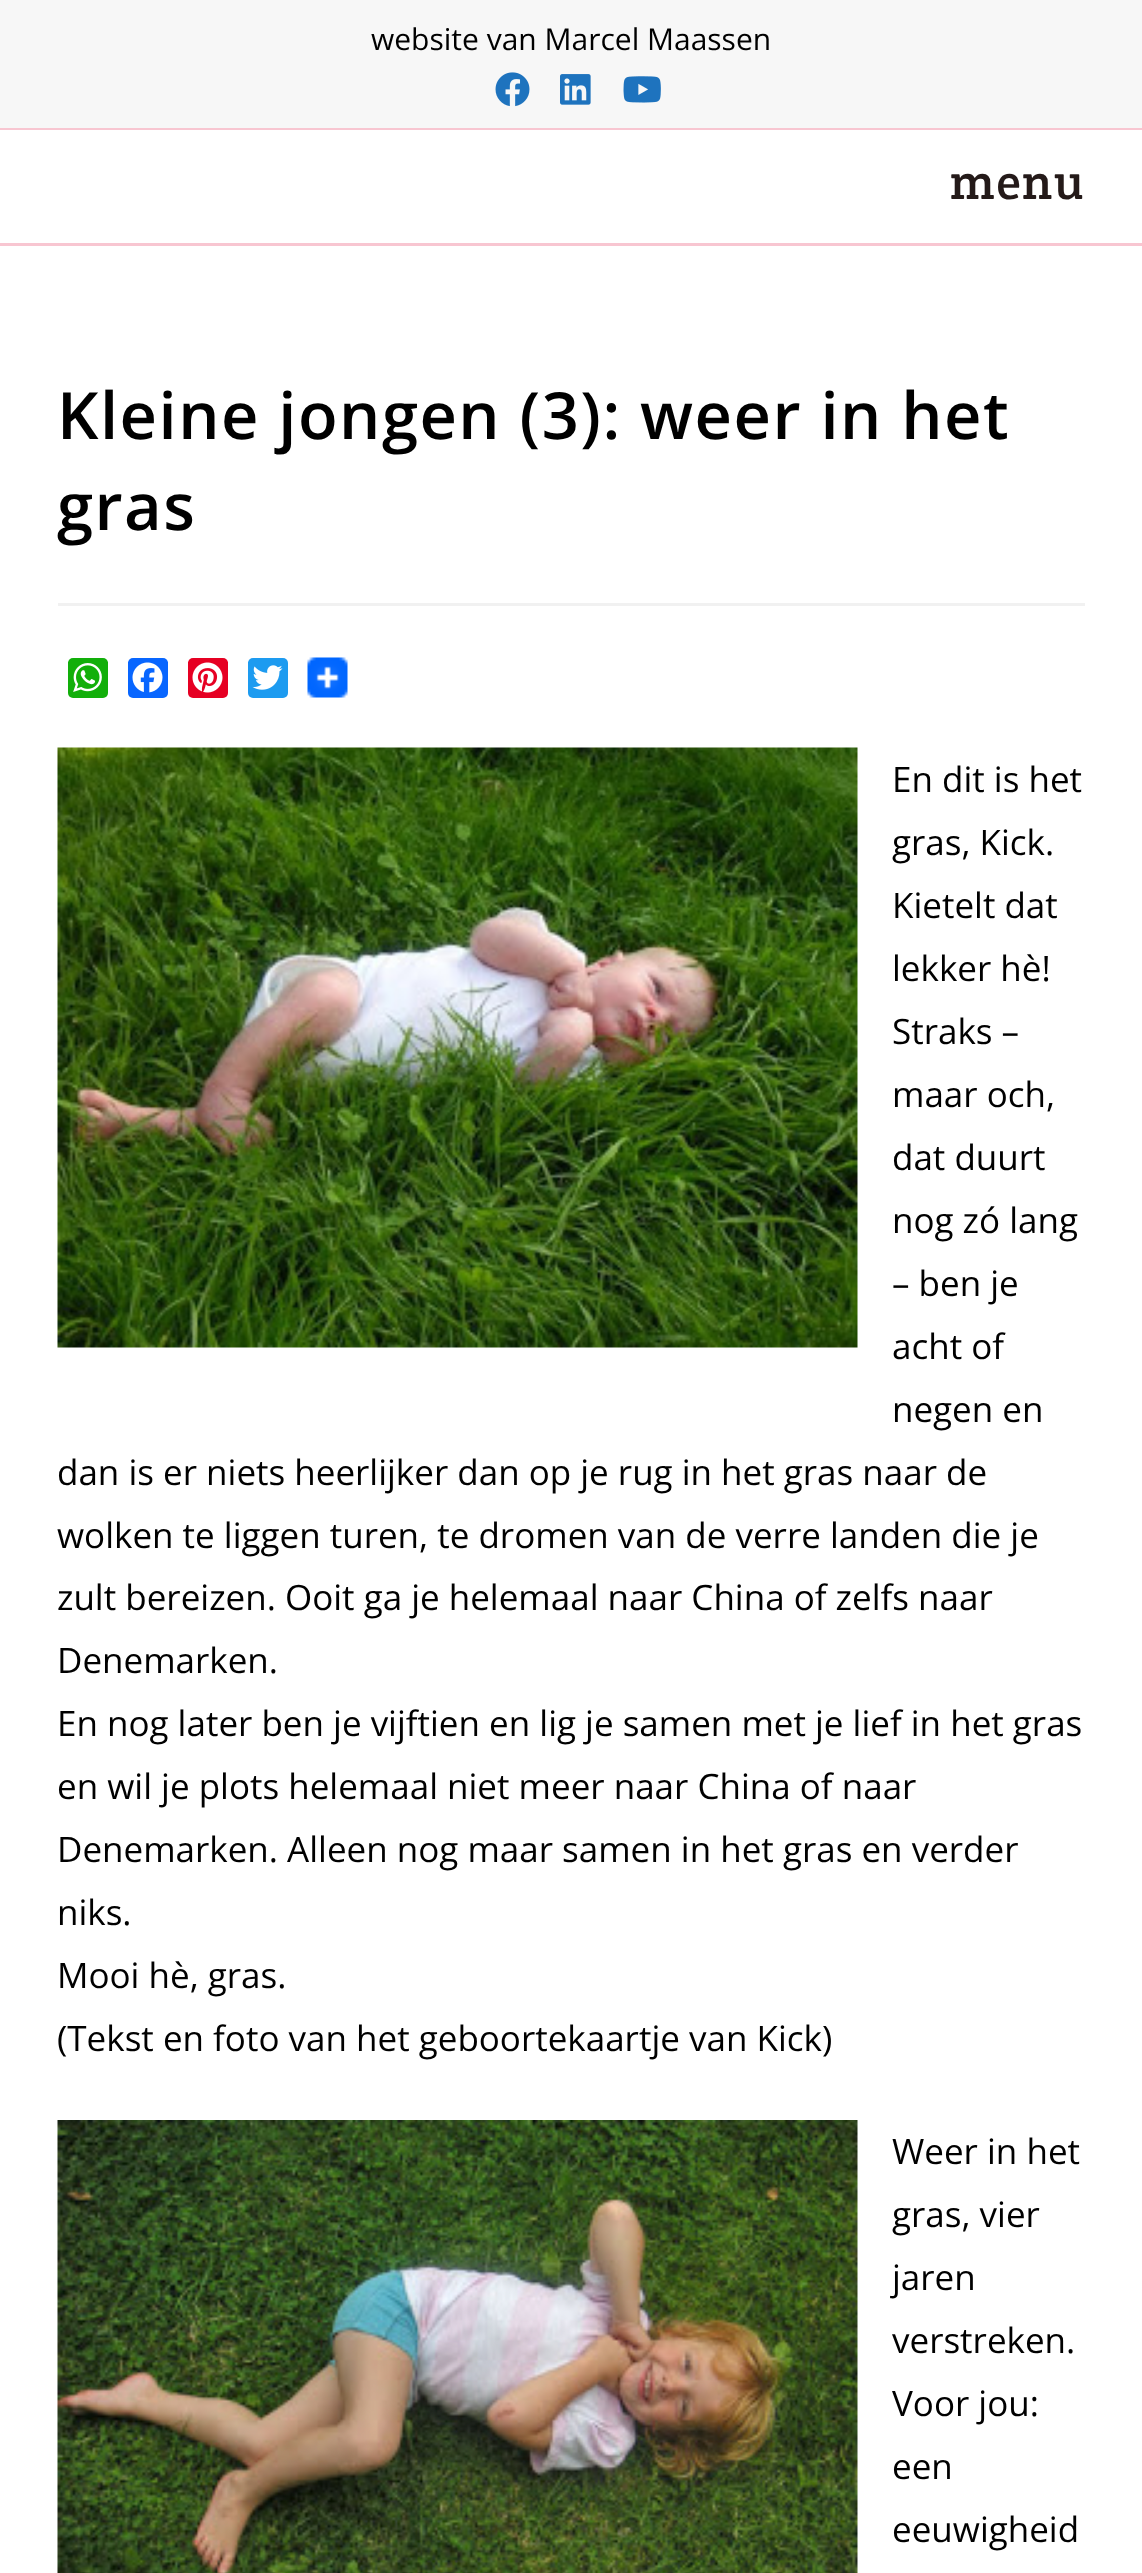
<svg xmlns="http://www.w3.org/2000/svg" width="1142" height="2573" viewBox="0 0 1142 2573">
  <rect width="100%" height="100%" fill="#ffffff"/>
  <rect x="0" y="0" width="1142" height="128" fill="#f7f7f7"/>
  <rect x="0" y="128" width="1142" height="2" fill="#f8c6d1"/>
  <text x="371" y="50" font-family="Open Sans" font-size="30" fill="#000000">website van Marcel Maassen</text>
  <image x="495" y="72" width="35" height="35" href="img1.png"/>
  <image x="560" y="74" width="31" height="31" href="img2.png"/>
  <image x="623" y="76" width="38" height="27" href="img3.png"/>
  <rect x="0" y="243" width="1142" height="3" fill="#f8c6d1"/>
  <text x="950" y="199" font-family="Crete Round" font-size="50" letter-spacing="1.5" fill="#241a19">menu</text>
  <rect x="58" y="603" width="1027" height="3" fill="#f1f1f1"/>
  <text x="57" y="439" font-family="Open Sans" font-size="65" font-weight="600" letter-spacing="1.5" fill="#000000">Kleine jongen (3): weer in het</text>
  <text x="57" y="530" font-family="Open Sans" font-size="65" font-weight="600" letter-spacing="1.5" fill="#000000">gras</text>
  <rect x="68" y="658" width="40" height="40" rx="5" fill="#12af0a"/>
  <image x="73" y="663" width="29" height="29" href="img4.png"/>
  <rect x="128" y="658" width="40" height="40" rx="5" fill="#0866ff"/>
  <image x="132" y="662" width="31" height="31" href="img5.png"/>
  <rect x="188" y="658" width="40" height="40" rx="5" fill="#e60023"/>
  <image x="192" y="662" width="31" height="31" href="img6.png"/>
  <rect x="248" y="658" width="40" height="40" rx="5" fill="#1d9bf0"/>
  <image x="252" y="665" width="31" height="25" href="img7.png"/>
  <image x="307" y="657" width="41" height="41" href="img8.png"/>
  <image x="57" y="747" width="801" height="601" href="img9.png"/>
  <text x="892" y="792" font-family="Open Sans" font-size="35" fill="#000000">En dit is het</text>
  <text x="892" y="855" font-family="Open Sans" font-size="35" fill="#000000">gras, Kick.</text>
  <text x="892" y="918" font-family="Open Sans" font-size="35" fill="#000000">Kietelt dat</text>
  <text x="892" y="981" font-family="Open Sans" font-size="35" fill="#000000">lekker hè!</text>
  <text x="892" y="1044" font-family="Open Sans" font-size="35" fill="#000000">Straks –</text>
  <text x="892" y="1107" font-family="Open Sans" font-size="35" fill="#000000">maar och,</text>
  <text x="892" y="1170" font-family="Open Sans" font-size="35" fill="#000000">dat duurt</text>
  <text x="892" y="1233" font-family="Open Sans" font-size="35" fill="#000000">nog zó lang</text>
  <text x="892" y="1296" font-family="Open Sans" font-size="35" fill="#000000">– ben je</text>
  <text x="892" y="1359" font-family="Open Sans" font-size="35" fill="#000000">acht of</text>
  <text x="892" y="1422" font-family="Open Sans" font-size="35" fill="#000000">negen en</text>
  <text x="57" y="1485" font-family="Open Sans" font-size="35" fill="#000000">dan is er niets heerlijker dan op je rug in het gras naar de</text>
  <text x="57" y="1548" font-family="Open Sans" font-size="35" fill="#000000">wolken te liggen turen, te dromen van de verre landen die je</text>
  <text x="57" y="1610" font-family="Open Sans" font-size="35" fill="#000000">zult bereizen. Ooit ga je helemaal naar China of zelfs naar</text>
  <text x="57" y="1673" font-family="Open Sans" font-size="35" fill="#000000">Denemarken.</text>
  <text x="57" y="1736" font-family="Open Sans" font-size="35" fill="#000000">En nog later ben je vijftien en lig je samen met je lief in het gras</text>
  <text x="57" y="1799" font-family="Open Sans" font-size="35" fill="#000000">en wil je plots helemaal niet meer naar China of naar</text>
  <text x="57" y="1862" font-family="Open Sans" font-size="35" fill="#000000">Denemarken. Alleen nog maar samen in het gras en verder</text>
  <text x="57" y="1925" font-family="Open Sans" font-size="35" fill="#000000">niks.</text>
  <text x="57" y="1988" font-family="Open Sans" font-size="35" fill="#000000">Mooi hè, gras.</text>
  <text x="57" y="2051" font-family="Open Sans" font-size="35" fill="#000000">(Tekst en foto van het geboortekaartje van Kick)</text>
  <image x="57" y="2120" width="801" height="453" href="img10.png"/>
  <text x="892" y="2164" font-family="Open Sans" font-size="35" fill="#000000">Weer in het</text>
  <text x="892" y="2227" font-family="Open Sans" font-size="35" fill="#000000">gras, vier</text>
  <text x="892" y="2290" font-family="Open Sans" font-size="35" fill="#000000">jaren</text>
  <text x="892" y="2353" font-family="Open Sans" font-size="35" fill="#000000">verstreken.</text>
  <text x="892" y="2416" font-family="Open Sans" font-size="35" fill="#000000">Voor jou:</text>
  <text x="892" y="2479" font-family="Open Sans" font-size="35" fill="#000000">een</text>
  <text x="892" y="2542" font-family="Open Sans" font-size="35" fill="#000000">eeuwigheid</text>
</svg>
